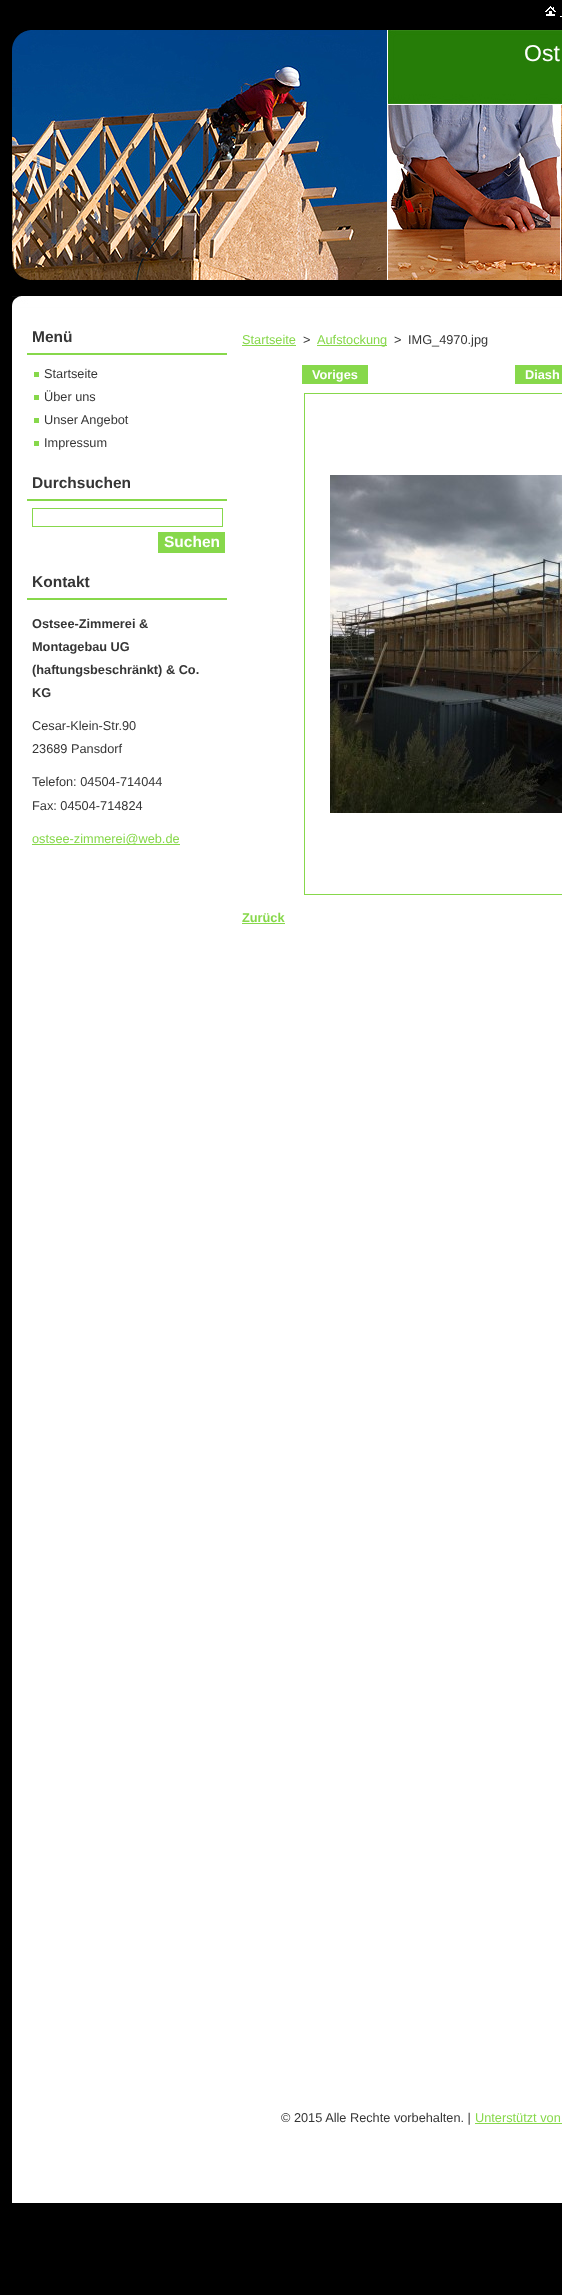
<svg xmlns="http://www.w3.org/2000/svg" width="562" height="2295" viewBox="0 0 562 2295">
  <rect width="100%" height="100%" fill="#000000"/>
  <rect x="12" y="308" width="550" height="1895" fill="#ffffff"/>
  <image x="545" y="6" width="11" height="10" href="img1.png"/>
  <rect x="560" y="16" width="2" height="1" fill="#ffffff"/>
  <image x="12" y="296" width="550" height="12" href="img2.png"/>
  <image x="12" y="30" width="550" height="250" href="img3.png"/>
  <text x="524" y="61" font-family="Liberation Sans" font-size="23" fill="#ffffff">Ost</text>
  <rect x="27" y="353" width="200" height="2" fill="#87d84b"/>
  <text x="32" y="342" font-family="Liberation Sans" font-size="15.5" font-weight="bold" fill="#353535">Menü</text>
  <text x="44" y="378" font-family="Liberation Sans" font-size="12.75" fill="#353535">Startseite</text>
  <rect x="34" y="372" width="5" height="5" fill="#87d84b"/>
  <text x="44" y="401" font-family="Liberation Sans" font-size="12.75" fill="#353535">Über uns</text>
  <rect x="34" y="395" width="5" height="5" fill="#87d84b"/>
  <text x="44" y="424" font-family="Liberation Sans" font-size="12.75" fill="#353535">Unser Angebot</text>
  <rect x="34" y="418" width="5" height="5" fill="#87d84b"/>
  <text x="44" y="447" font-family="Liberation Sans" font-size="12.75" fill="#353535">Impressum</text>
  <rect x="34" y="441" width="5" height="5" fill="#87d84b"/>
  <rect x="27" y="499" width="200" height="2" fill="#87d84b"/>
  <text x="32" y="488" font-family="Liberation Sans" font-size="15.5" font-weight="bold" fill="#353535">Durchsuchen</text>
  <rect x="32.5" y="508.5" width="190" height="18" fill="none" stroke="#87d84b"/>
  <rect x="158" y="532" width="67" height="21" fill="#87d84b"/>
  <text x="164" y="547" font-family="Liberation Sans" font-size="15.5" font-weight="bold" fill="#ffffff">Suchen</text>
  <rect x="27" y="598" width="200" height="2" fill="#87d84b"/>
  <text x="32" y="587" font-family="Liberation Sans" font-size="15.5" font-weight="bold" fill="#353535">Kontakt</text>
  <text x="32" y="628" font-family="Liberation Sans" font-size="12.75" font-weight="bold" fill="#353535">Ostsee-Zimmerei &amp;</text>
  <text x="32" y="651" font-family="Liberation Sans" font-size="12.75" font-weight="bold" fill="#353535">Montagebau UG</text>
  <text x="32" y="674" font-family="Liberation Sans" font-size="12.75" font-weight="bold" fill="#353535">(haftungsbeschränkt) &amp; Co.</text>
  <text x="32" y="697" font-family="Liberation Sans" font-size="12.75" font-weight="bold" fill="#353535">KG</text>
  <text x="32" y="730" font-family="Liberation Sans" font-size="12.75" fill="#353535">Cesar-Klein-Str.90</text>
  <text x="32" y="753" font-family="Liberation Sans" font-size="12.75" fill="#353535">23689 Pansdorf</text>
  <text x="32" y="786" font-family="Liberation Sans" font-size="12.75" fill="#353535">Telefon: 04504-714044</text>
  <text x="32" y="810" font-family="Liberation Sans" font-size="12.75" fill="#353535">Fax: 04504-714824</text>
  <rect x="32" y="844" width="148" height="1" fill="#87d84b"/>
  <text x="32" y="843" font-family="Liberation Sans" font-size="12.75" fill="#87d84b">ostsee-zimmerei@web.de</text>
  <text x="242" y="344" font-family="Liberation Sans" font-size="12.75" fill="#87d84b">Startseite</text>
  <rect x="242" y="345" width="54" height="1" fill="#87d84b"/>
  <text x="303" y="344" font-family="Liberation Sans" font-size="12.75" fill="#353535">&gt;</text>
  <rect x="317" y="345" width="70" height="1" fill="#87d84b"/>
  <text x="317" y="344" font-family="Liberation Sans" font-size="12.75" fill="#87d84b">Aufstockung</text>
  <text x="394" y="344" font-family="Liberation Sans" font-size="12.75" fill="#353535">&gt;</text>
  <text x="408" y="344" font-family="Liberation Sans" font-size="12.75" fill="#353535">IMG_4970.jpg</text>
  <rect x="302" y="365" width="66" height="19" fill="#87d84b"/>
  <text x="312" y="379" font-family="Liberation Sans" font-size="12.75" font-weight="bold" fill="#ffffff">Voriges</text>
  <rect x="515" y="365" width="47" height="19" fill="#87d84b"/>
  <text x="525" y="379" font-family="Liberation Sans" font-size="12.75" font-weight="bold" fill="#ffffff">Diash</text>
  <rect x="304.5" y="393.5" width="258" height="501" fill="none" stroke="#87d84b"/>
  <image x="330" y="475" width="232" height="338" href="img4.png"/>
  <text x="242" y="922" font-family="Liberation Sans" font-size="12.75" font-weight="bold" fill="#87d84b">Zurück</text>
  <rect x="242" y="923" width="43" height="1" fill="#87d84b"/>
  <text x="281" y="2122" font-family="Liberation Sans" font-size="12.75" fill="#353535">© 2015 Alle Rechte vorbehalten. |</text>
  <text x="475" y="2122" font-family="Liberation Sans" font-size="12.75" fill="#87d84b">Unterstützt von</text>
  <rect x="475" y="2123" width="87" height="1" fill="#87d84b"/>
</svg>
